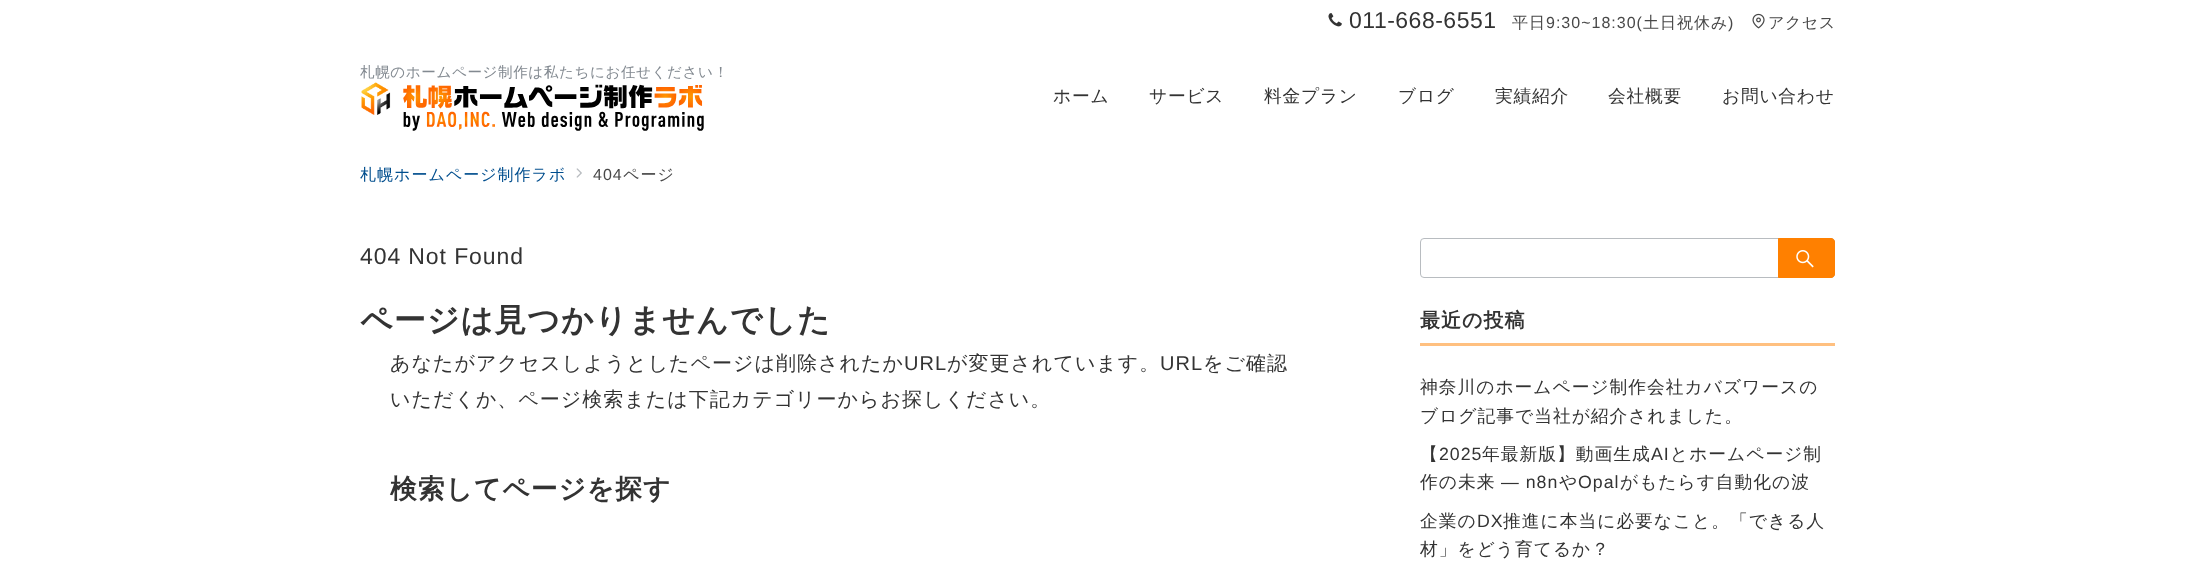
<svg xmlns="http://www.w3.org/2000/svg" width="2195" height="572" viewBox="0 0 2195 572">
  <rect width="100%" height="100%" fill="#ffffff"/>
  <image x="1328" y="13" width="14" height="14" href="img1.png"/>
  <text x="1349" y="28" font-family="Liberation Sans" font-size="23" letter-spacing="0.5" fill="#333333">011-668-6551</text>
  <text x="1512" y="28" font-family="WenQuanYi Zen Hei" font-size="16" font-weight="500" letter-spacing="1" fill="#484848">平日</text>
  <text x="1546" y="28" font-family="Liberation Sans" font-size="16" letter-spacing="1" fill="#484848">9:30~18:30(</text>
  <text x="1643" y="28" font-family="WenQuanYi Zen Hei" font-size="16" font-weight="500" letter-spacing="1" fill="#484848">土日祝休み</text>
  <text x="1728" y="28" font-family="Liberation Sans" font-size="16" letter-spacing="1" fill="#484848">)</text>
  <image x="1752" y="13" width="13" height="16" href="img2.png"/>
  <text x="1768" y="28" font-family="WenQuanYi Zen Hei" font-size="16" font-weight="500" letter-spacing="0.5" fill="#484848">アクセス</text>
  <text x="360" y="77" font-family="WenQuanYi Zen Hei" font-size="14.55" font-weight="500" letter-spacing="0.6" fill="#828990">札幌のホームページ制作は私たちにお任せください！</text>
  <image x="361" y="82" width="30" height="33" href="img3.png"/>
  <image x="403" y="84" width="301" height="47" href="img4.png"/>
  <text x="1053" y="102" font-family="WenQuanYi Zen Hei" font-size="17.75" font-weight="500" letter-spacing="0.75" fill="#333333">ホーム</text>
  <text x="1149" y="102" font-family="WenQuanYi Zen Hei" font-size="17.75" font-weight="500" letter-spacing="0.75" fill="#333333">サービス</text>
  <text x="1264" y="102" font-family="WenQuanYi Zen Hei" font-size="17.75" font-weight="500" letter-spacing="0.75" fill="#333333">料金プラン</text>
  <text x="1398" y="102" font-family="WenQuanYi Zen Hei" font-size="17.75" font-weight="500" letter-spacing="0.75" fill="#333333">ブログ</text>
  <text x="1495" y="102" font-family="WenQuanYi Zen Hei" font-size="17.75" font-weight="500" letter-spacing="0.75" fill="#333333">実績紹介</text>
  <text x="1608" y="102" font-family="WenQuanYi Zen Hei" font-size="17.75" font-weight="500" letter-spacing="0.75" fill="#333333">会社概要</text>
  <text x="1722" y="102" font-family="WenQuanYi Zen Hei" font-size="17.75" font-weight="500" letter-spacing="0.75" fill="#333333">お問い合わせ</text>
  <text x="360" y="180" font-family="WenQuanYi Zen Hei" font-size="16" font-weight="500" letter-spacing="1" fill="#004e8e">札幌ホームページ制作ラボ</text>
  <image x="576" y="168" width="6" height="10" href="img5.png"/>
  <text x="593" y="180" font-family="Liberation Sans" font-size="16" letter-spacing="1" fill="#484848">404</text>
  <text x="623" y="180" font-family="WenQuanYi Zen Hei" font-size="16" font-weight="500" letter-spacing="1" fill="#484848">ページ</text>
  <text x="360" y="264" font-family="Liberation Sans" font-size="23" letter-spacing="0.9" fill="#333333">404 Not Found</text>
  <text x="360" y="331" font-family="WenQuanYi Zen Hei" font-size="32" font-weight="bold" letter-spacing="1" fill="#333333">ページは見つかりませんでした</text>
  <text x="390" y="370" font-family="WenQuanYi Zen Hei" font-size="20" font-weight="500" letter-spacing="1" fill="#333333">あなたがアクセスしようとしたページは削除されたか</text>
  <text x="904" y="370" font-family="Liberation Sans" font-size="20" letter-spacing="1" fill="#333333">URL</text>
  <text x="947" y="370" font-family="WenQuanYi Zen Hei" font-size="20" font-weight="500" letter-spacing="1" fill="#333333">が変更されています。</text>
  <text x="1160" y="370" font-family="Liberation Sans" font-size="20" letter-spacing="1" fill="#333333">URL</text>
  <text x="1203" y="370" font-family="WenQuanYi Zen Hei" font-size="20" font-weight="500" letter-spacing="1" fill="#333333">をご確認</text>
  <text x="390" y="406" font-family="WenQuanYi Zen Hei" font-size="20" font-weight="500" letter-spacing="1" fill="#333333">いただくか、ページ検索または下記カテゴリーからお探しください。</text>
  <text x="390" y="498" font-family="WenQuanYi Zen Hei" font-size="26.75" font-weight="bold" letter-spacing="1" fill="#333333">検索してページを探す</text>
  <rect x="1420.5" y="238.5" width="414" height="39" rx="3.5" fill="none" stroke="#b8bcc0"/>
  <path d="M1778.5 238.5H1831C1833 238.5 1834.5 240 1834.5 242V274C1834.5 276 1833 277.5 1831 277.5H1778.5Z" fill="#ff8000" stroke="#ff8000"/>
  <image x="1796" y="250" width="18" height="18" href="img6.png"/>
  <text x="1420" y="327" font-family="WenQuanYi Zen Hei" font-size="20" font-weight="bold" letter-spacing="1" fill="#333333">最近の投稿</text>
  <rect x="1420" y="343" width="415" height="3" fill="#ffc080"/>
  <text x="1420" y="393" font-family="WenQuanYi Zen Hei" font-size="17.75" font-weight="500" letter-spacing="1" fill="#333333">神奈川のホームページ制作会社カバズワースの</text>
  <text x="1420" y="422" font-family="WenQuanYi Zen Hei" font-size="17.75" font-weight="500" letter-spacing="1" fill="#333333">ブログ記事で当社が紹介されました。</text>
  <text x="1420" y="460" font-family="WenQuanYi Zen Hei" font-size="17.75" font-weight="500" letter-spacing="1" fill="#333333">【</text>
  <text x="1439" y="460" font-family="Liberation Sans" font-size="17.75" letter-spacing="1" fill="#333333">2025</text>
  <text x="1482" y="460" font-family="WenQuanYi Zen Hei" font-size="17.75" font-weight="500" letter-spacing="1" fill="#333333">年最新版】動画生成</text>
  <text x="1651" y="460" font-family="Liberation Sans" font-size="17.75" letter-spacing="1" fill="#333333">AI</text>
  <text x="1670" y="460" font-family="WenQuanYi Zen Hei" font-size="17.75" font-weight="500" letter-spacing="1" fill="#333333">とホームページ制</text>
  <text x="1420" y="488" font-family="WenQuanYi Zen Hei" font-size="17.75" font-weight="500" letter-spacing="1" fill="#333333">作の未来</text>
  <text x="1501" y="488" font-family="Liberation Sans" font-size="17.75" letter-spacing="1" fill="#333333">― n8n</text>
  <text x="1559" y="488" font-family="WenQuanYi Zen Hei" font-size="17.75" font-weight="500" letter-spacing="1" fill="#333333">や</text>
  <text x="1578" y="488" font-family="Liberation Sans" font-size="17.75" letter-spacing="1" fill="#333333">Opal</text>
  <text x="1620" y="488" font-family="WenQuanYi Zen Hei" font-size="17.75" font-weight="500" letter-spacing="1" fill="#333333">がもたらす自動化の波</text>
  <text x="1420" y="527" font-family="WenQuanYi Zen Hei" font-size="17.75" font-weight="500" letter-spacing="1" fill="#333333">企業の</text>
  <text x="1477" y="527" font-family="Liberation Sans" font-size="17.75" letter-spacing="1" fill="#333333">DX</text>
  <text x="1503" y="527" font-family="WenQuanYi Zen Hei" font-size="17.75" font-weight="500" letter-spacing="1" fill="#333333">推進に本当に必要なこと。「できる人</text>
  <text x="1420" y="555" font-family="WenQuanYi Zen Hei" font-size="17.75" font-weight="500" letter-spacing="1" fill="#333333">材」をどう育てるか？</text>
</svg>
